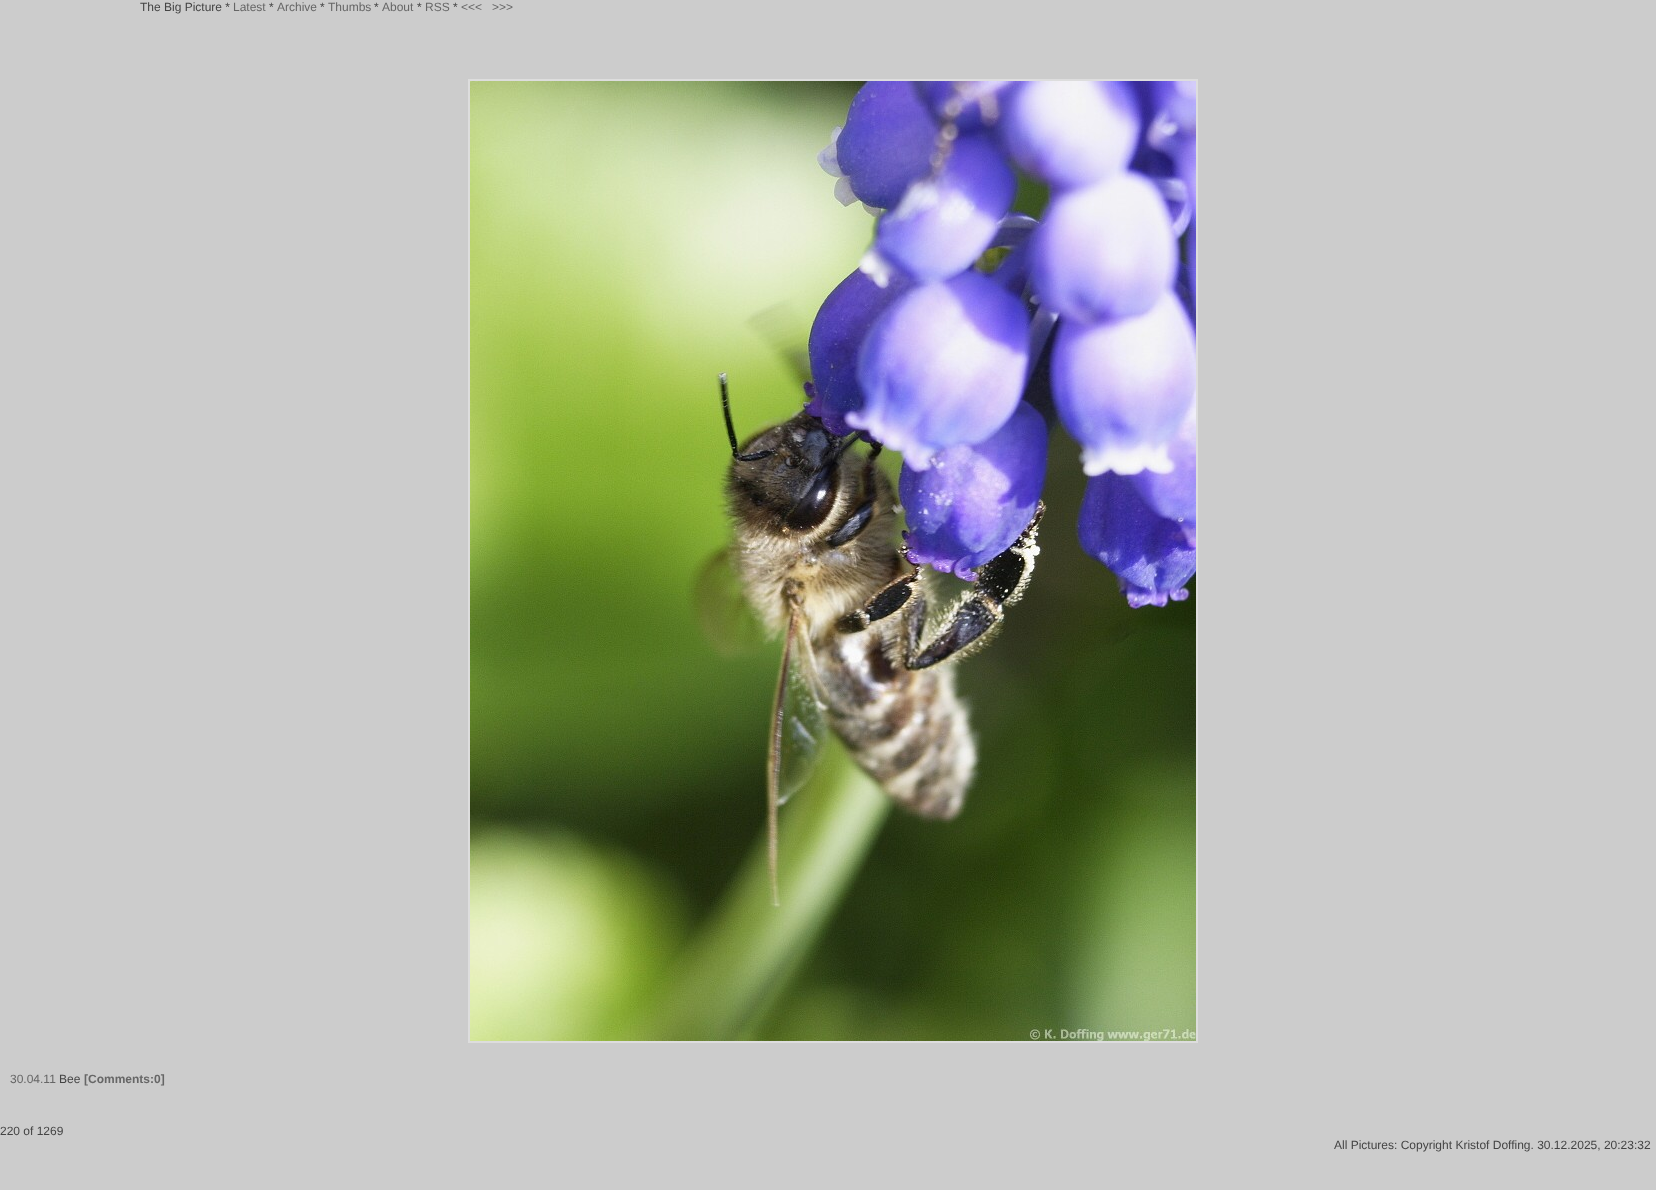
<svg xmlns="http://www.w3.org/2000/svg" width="1656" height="1190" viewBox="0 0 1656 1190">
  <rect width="100%" height="100%" fill="#cccccc"/>
  <text x="140" y="11" font-family="Liberation Sans" font-size="12" fill="#444444">The Big Picture *</text>
  <text x="233" y="11" font-family="Liberation Sans" font-size="12" fill="#666666">Latest</text>
  <text x="269" y="11" font-family="Liberation Sans" font-size="12" fill="#444444">*</text>
  <text x="277" y="11" font-family="Liberation Sans" font-size="12" fill="#666666">Archive</text>
  <text x="320" y="11" font-family="Liberation Sans" font-size="12" fill="#444444">*</text>
  <text x="328" y="11" font-family="Liberation Sans" font-size="12" fill="#666666">Thumbs</text>
  <text x="374" y="11" font-family="Liberation Sans" font-size="12" fill="#444444">*</text>
  <text x="382" y="11" font-family="Liberation Sans" font-size="12" fill="#666666">About</text>
  <text x="417" y="11" font-family="Liberation Sans" font-size="12" fill="#444444">*</text>
  <text x="425" y="11" font-family="Liberation Sans" font-size="12" fill="#666666">RSS</text>
  <text x="453" y="11" font-family="Liberation Sans" font-size="12" fill="#444444">*</text>
  <text x="461" y="11" font-family="Liberation Sans" font-size="12" fill="#666666">&lt;&lt;&lt;</text>
  <text x="492" y="11" font-family="Liberation Sans" font-size="12" fill="#666666">&gt;&gt;&gt;</text>
  <rect x="469" y="80" width="728" height="962" fill="none" stroke="#dddddd" stroke-width="2"/>
  <image x="470" y="81" width="726" height="960" href="img1.png"/>
  <text x="10" y="1083" font-family="Liberation Sans" font-size="12" fill="#666666">30.04.11</text>
  <text x="59" y="1083" font-family="Liberation Sans" font-size="12" fill="#444444">Bee</text>
  <text x="84" y="1083" font-family="Liberation Sans" font-size="12" font-weight="bold" fill="#666666">[Comments:0]</text>
  <text x="0" y="1135" font-family="Liberation Sans" font-size="12" fill="#444444">220 of 1269</text>
  <text x="1334" y="1149" font-family="Liberation Sans" font-size="12" fill="#444444">All Pictures: Copyright Kristof Doffing. 30.12.2025, 20:23:32</text>
</svg>
